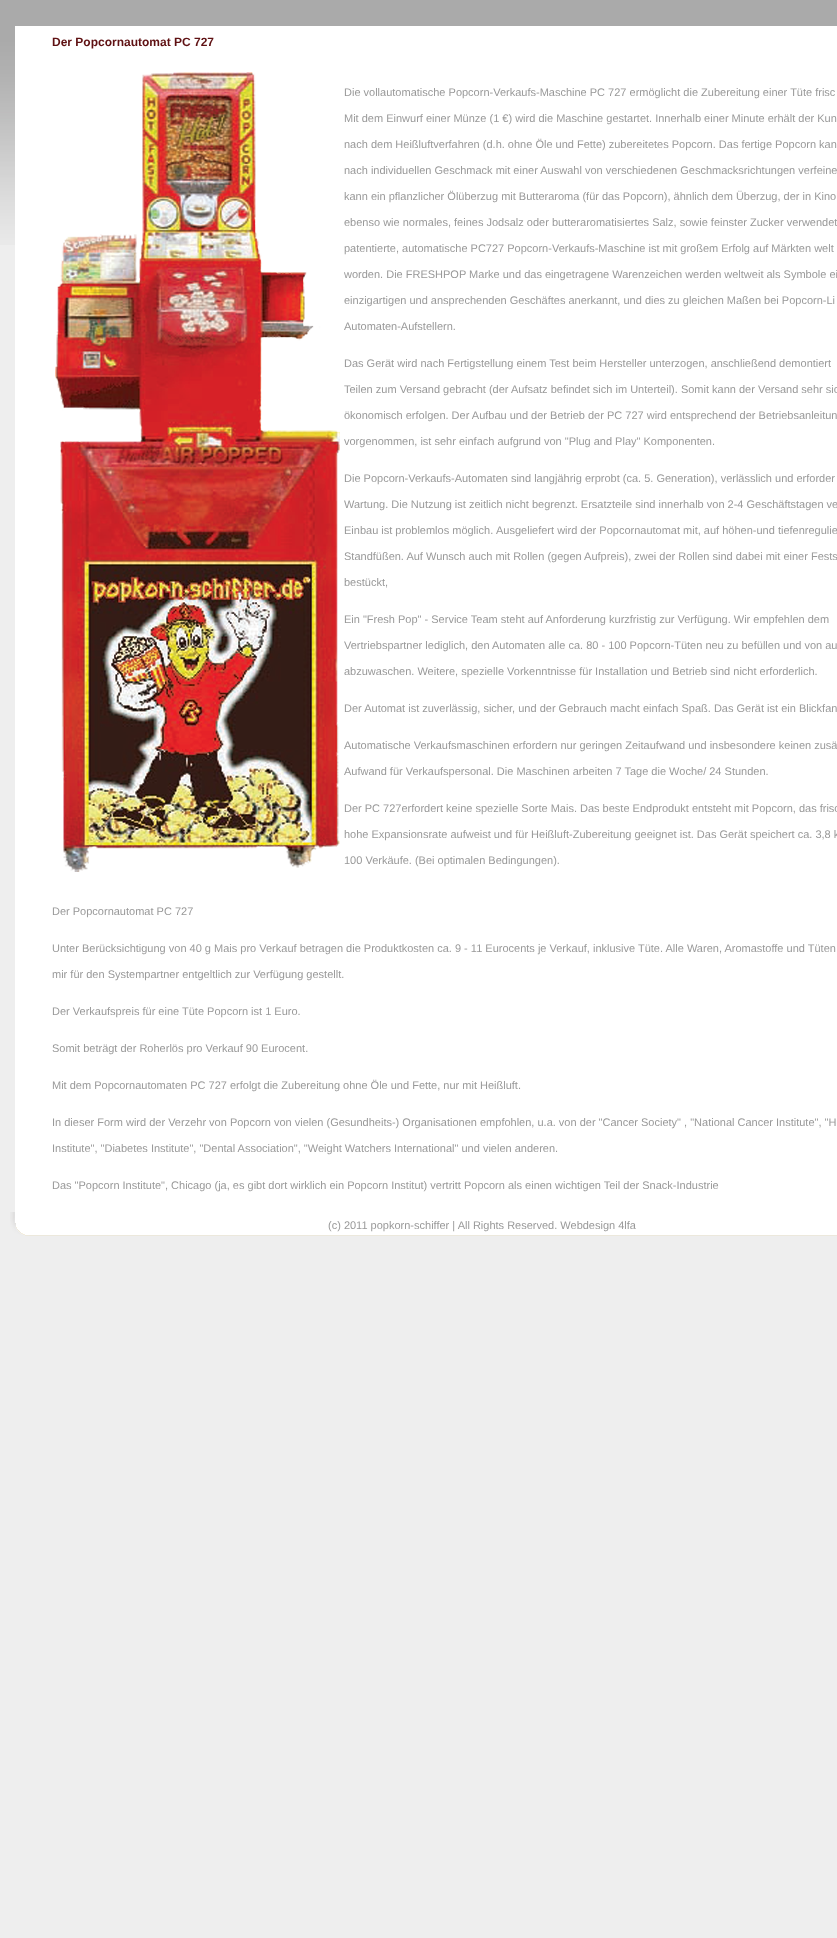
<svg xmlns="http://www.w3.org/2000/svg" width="837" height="1938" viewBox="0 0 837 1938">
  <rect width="100%" height="100%" fill="#eeeeee"/>
  <image x="0" y="0" width="837" height="245" href="img1.png"/>
  <rect x="15" y="26" width="822" height="1186" fill="#ffffff"/>
  <text x="52" y="46" font-family="Liberation Sans" font-size="12" font-weight="bold" fill="#5f1113">Der Popcornautomat PC 727</text>
  <image x="55" y="72" width="285" height="800" href="img2.png"/>
  <text x="344" y="96" font-family="Liberation Sans" font-size="11" fill="#999999">Die vollautomatische Popcorn-Verkaufs-Maschine PC 727 ermöglicht die Zubereitung einer Tüte frisc</text>
  <text x="344" y="122" font-family="Liberation Sans" font-size="11" fill="#999999">Mit dem Einwurf einer Münze (1 €) wird die Maschine gestartet. Innerhalb einer Minute erhält der Kun</text>
  <text x="344" y="148" font-family="Liberation Sans" font-size="11" fill="#999999">nach dem Heißluftverfahren (d.h. ohne Öle und Fette) zubereitetes Popcorn. Das fertige Popcorn kan</text>
  <text x="344" y="174" font-family="Liberation Sans" font-size="11" fill="#999999">nach individuellen Geschmack mit einer Auswahl von verschiedenen Geschmacksrichtungen verfeine</text>
  <text x="344" y="200" font-family="Liberation Sans" font-size="11" fill="#999999">kann ein pflanzlicher Ölüberzug mit Butteraroma (für das Popcorn), ähnlich dem Überzug, der in Kino</text>
  <text x="344" y="226" font-family="Liberation Sans" font-size="11" fill="#999999">ebenso wie normales, feines Jodsalz oder butteraromatisiertes Salz, sowie feinster Zucker verwendet</text>
  <text x="344" y="252" font-family="Liberation Sans" font-size="11" fill="#999999">patentierte, automatische PC727 Popcorn-Verkaufs-Maschine ist mit großem Erfolg auf Märkten welt</text>
  <text x="344" y="278" font-family="Liberation Sans" font-size="11" fill="#999999">worden. Die FRESHPOP Marke und das eingetragene Warenzeichen werden weltweit als Symbole ei</text>
  <text x="344" y="304" font-family="Liberation Sans" font-size="11" fill="#999999">einzigartigen und ansprechenden Geschäftes anerkannt, und dies zu gleichen Maßen bei Popcorn-Li</text>
  <text x="344" y="330" font-family="Liberation Sans" font-size="11" fill="#999999">Automaten-Aufstellern.</text>
  <text x="344" y="367" font-family="Liberation Sans" font-size="11" fill="#999999">Das Gerät wird nach Fertigstellung einem Test beim Hersteller unterzogen, anschließend demontiert</text>
  <text x="344" y="393" font-family="Liberation Sans" font-size="11" fill="#999999">Teilen zum Versand gebracht (der Aufsatz befindet sich im Unterteil). Somit kann der Versand sehr sic</text>
  <text x="344" y="419" font-family="Liberation Sans" font-size="11" fill="#999999">ökonomisch erfolgen. Der Aufbau und der Betrieb der PC 727 wird entsprechend der Betriebsanleitun</text>
  <text x="344" y="445" font-family="Liberation Sans" font-size="11" fill="#999999">vorgenommen, ist sehr einfach aufgrund von "Plug and Play" Komponenten.</text>
  <text x="344" y="482" font-family="Liberation Sans" font-size="11" fill="#999999">Die Popcorn-Verkaufs-Automaten sind langjährig erprobt (ca. 5. Generation), verlässlich und erforder</text>
  <text x="344" y="508" font-family="Liberation Sans" font-size="11" fill="#999999">Wartung. Die Nutzung ist zeitlich nicht begrenzt. Ersatzteile sind innerhalb von 2-4 Geschäftstagen ve</text>
  <text x="344" y="534" font-family="Liberation Sans" font-size="11" fill="#999999">Einbau ist problemlos möglich.</text>
  <text x="496" y="534" font-family="Liberation Sans" font-size="11" fill="#999999">Ausgeliefert wird der Popcornautomat mit, auf höhen-und tiefenregulie</text>
  <text x="344" y="560" font-family="Liberation Sans" font-size="11" fill="#999999">Standfüßen. Auf Wunsch auch mit Rollen (gegen Aufpreis), zwei der Rollen sind dabei mit einer Fests</text>
  <text x="344" y="586" font-family="Liberation Sans" font-size="11" fill="#999999">bestückt,</text>
  <text x="344" y="623" font-family="Liberation Sans" font-size="11" fill="#999999">Ein "Fresh Pop" - Service Team steht auf Anforderung kurzfristig zur Verfügung. Wir empfehlen dem</text>
  <text x="344" y="649" font-family="Liberation Sans" font-size="11" fill="#999999">Vertriebspartner lediglich, den Automaten alle ca. 80 - 100 Popcorn-Tüten neu zu befüllen und von au</text>
  <text x="344" y="675" font-family="Liberation Sans" font-size="11" fill="#999999">abzuwaschen. Weitere, spezielle Vorkenntnisse für Installation und Betrieb sind nicht erforderlich.</text>
  <text x="344" y="712" font-family="Liberation Sans" font-size="11" fill="#999999">Der Automat ist zuverlässig, sicher, und der Gebrauch macht einfach Spaß. Das Gerät ist ein Blickfan</text>
  <text x="344" y="749" font-family="Liberation Sans" font-size="11" fill="#999999">Automatische Verkaufsmaschinen erfordern nur geringen Zeitaufwand und insbesondere keinen zusä</text>
  <text x="344" y="775" font-family="Liberation Sans" font-size="11" fill="#999999">Aufwand für Verkaufspersonal. Die Maschinen arbeiten 7 Tage die Woche/ 24 Stunden.</text>
  <text x="344" y="812" font-family="Liberation Sans" font-size="11" fill="#999999">Der PC 727erfordert keine spezielle Sorte Mais. Das beste Endprodukt entsteht mit Popcorn, das frisc</text>
  <text x="344" y="838" font-family="Liberation Sans" font-size="11" fill="#999999">hohe Expansionsrate aufweist und für Heißluft-Zubereitung geeignet ist. Das Gerät speichert ca. 3,8 k</text>
  <text x="344" y="864" font-family="Liberation Sans" font-size="11" fill="#999999">100 Verkäufe. (Bei optimalen Bedingungen).</text>
  <text x="52" y="915" font-family="Liberation Sans" font-size="11" fill="#999999">Der Popcornautomat PC 727</text>
  <text x="52" y="952" font-family="Liberation Sans" font-size="11" fill="#999999">Unter Berücksichtigung von 40 g Mais pro Verkauf betragen die Produktkosten ca. 9 - 11 Eurocents je Verkauf, inklusive Tüte. Alle Waren, Aromastoffe und Tüten</text>
  <text x="52" y="978" font-family="Liberation Sans" font-size="11" fill="#999999">mir für den Systempartner entgeltlich zur Verfügung gestellt.</text>
  <text x="52" y="1015" font-family="Liberation Sans" font-size="11" fill="#999999">Der Verkaufspreis für eine Tüte Popcorn ist 1 Euro.</text>
  <text x="52" y="1052" font-family="Liberation Sans" font-size="11" fill="#999999">Somit beträgt der Roherlös pro Verkauf 90 Eurocent.</text>
  <text x="52" y="1089" font-family="Liberation Sans" font-size="11" fill="#999999">Mit dem Popcornautomaten PC 727 erfolgt die Zubereitung ohne Öle und Fette, nur mit Heißluft.</text>
  <text x="52" y="1126" font-family="Liberation Sans" font-size="11" fill="#999999">In dieser Form wird der Verzehr von Popcorn von vielen (Gesundheits-) Organisationen empfohlen, u.a. von der "Cancer Society" , "National Cancer Institute", "H</text>
  <text x="52" y="1152" font-family="Liberation Sans" font-size="11" fill="#999999">Institute", "Diabetes Institute", "Dental Association", "Weight Watchers International" und vielen anderen.</text>
  <text x="52" y="1189" font-family="Liberation Sans" font-size="11" fill="#999999">Das "Popcorn Institute", Chicago (ja, es gibt dort wirklich ein Popcorn Institut) vertritt Popcorn als einen wichtigen Teil der Snack-Industrie</text>
  <image x="10" y="1212" width="827" height="24" href="img3.png"/>
  <text x="328" y="1229" font-family="Liberation Sans" font-size="11" fill="#999999">(c) 2011 popkorn-schiffer | All Rights Reserved. Webdesign 4lfa</text>
</svg>
